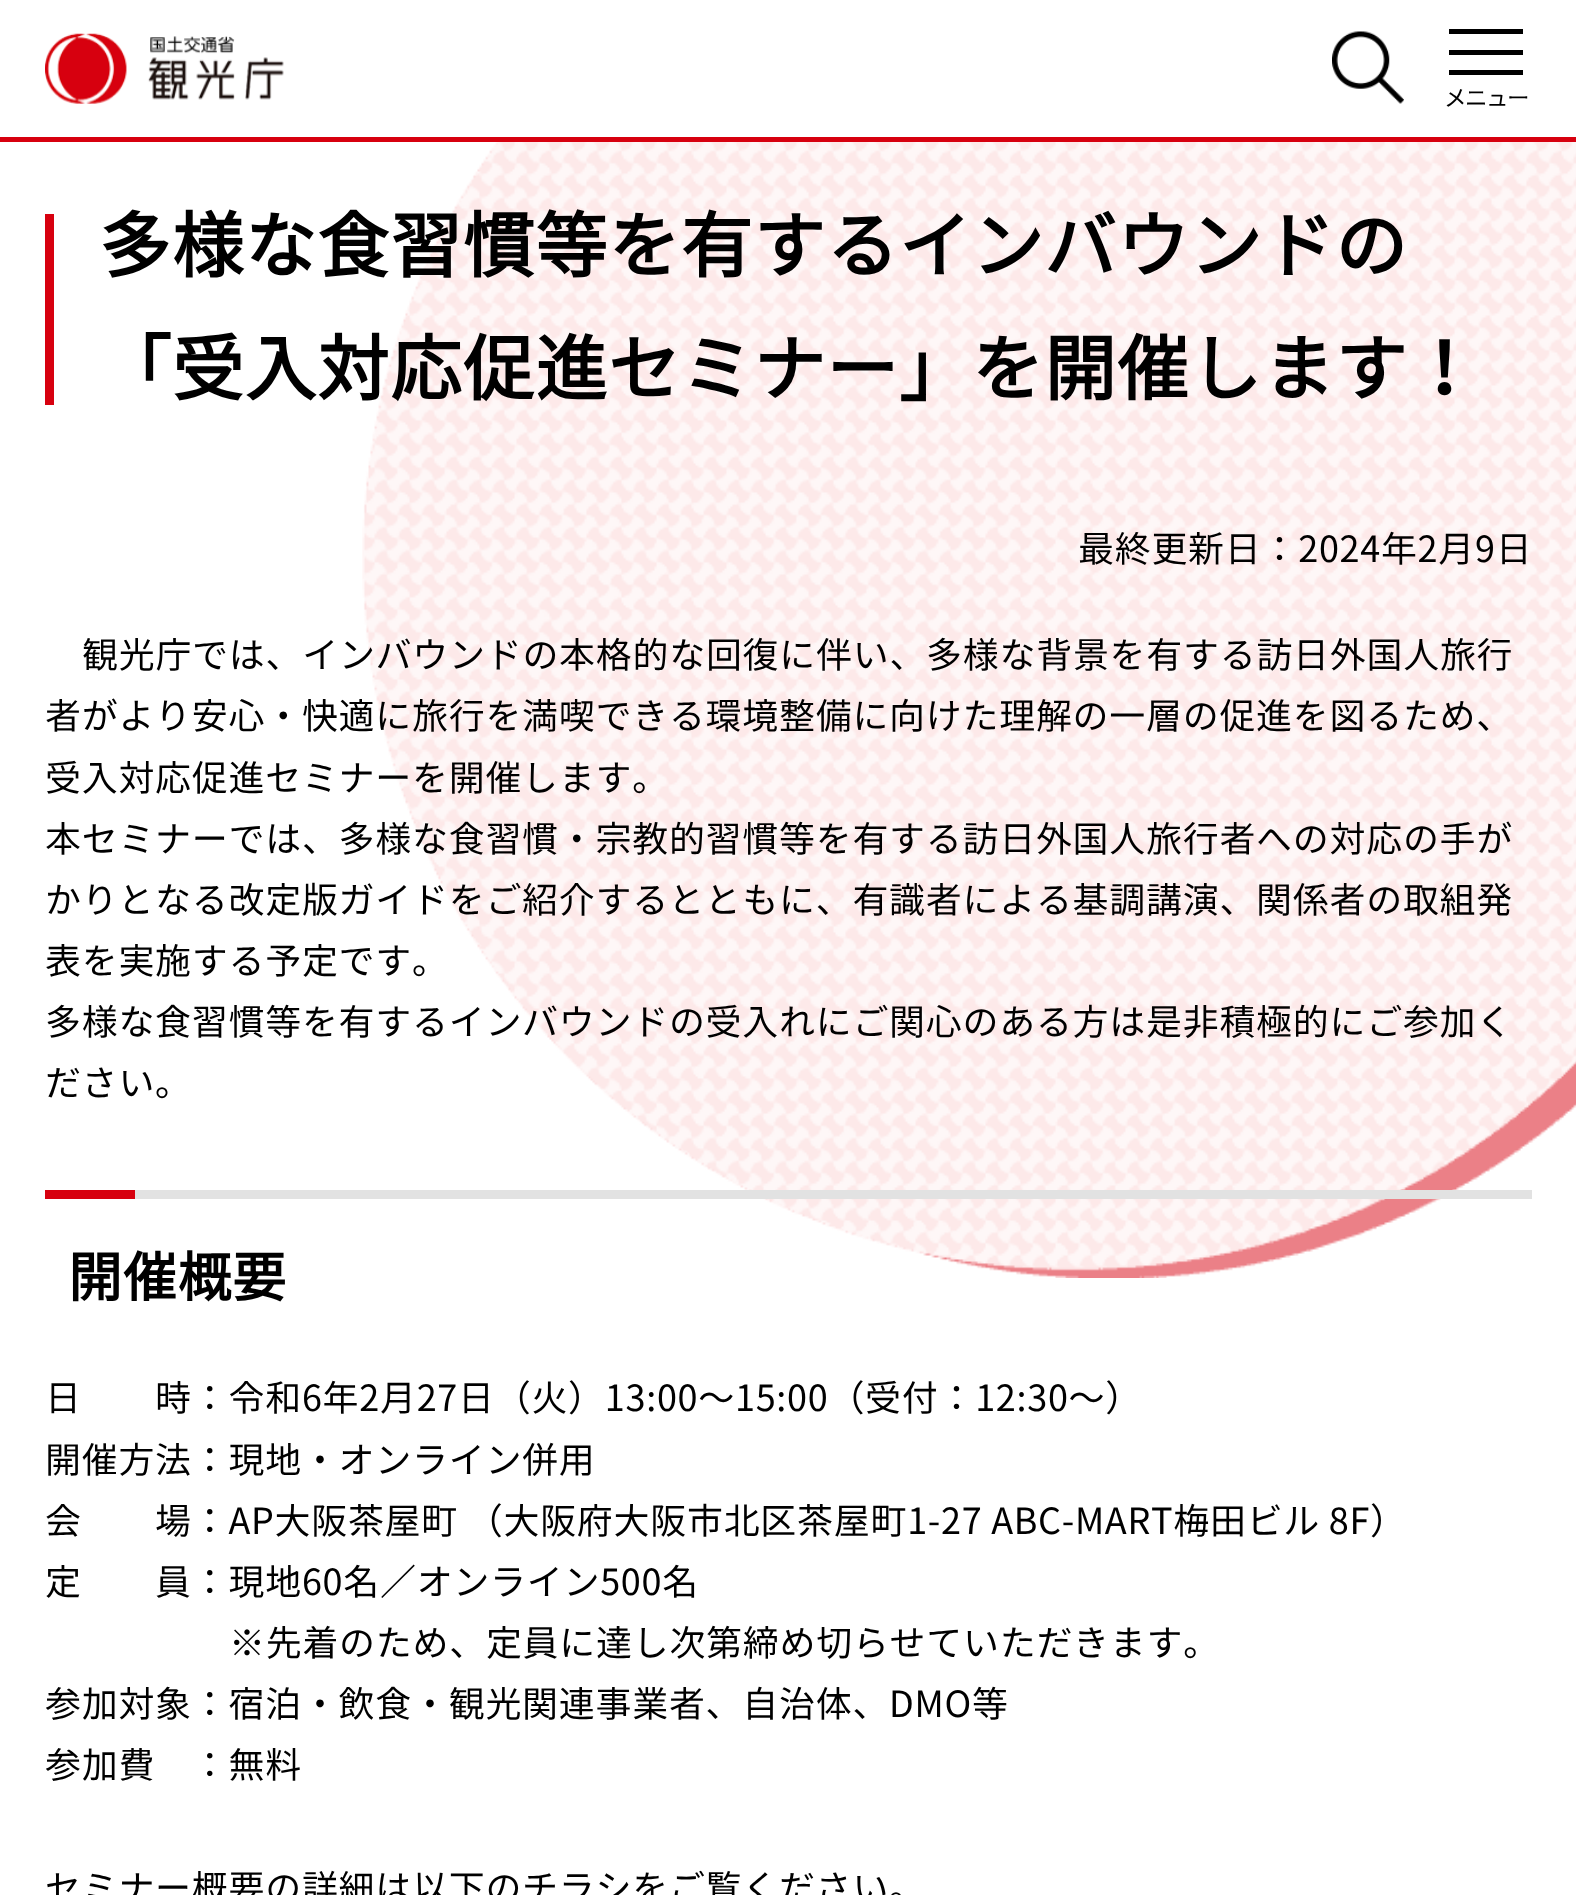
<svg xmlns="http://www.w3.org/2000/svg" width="1576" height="1895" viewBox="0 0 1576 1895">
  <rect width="100%" height="100%" fill="#ffffff"/>
  <rect x="0" y="137" width="1576" height="5" fill="#d7000f"/>
  <image x="45" y="33" width="239" height="71" href="img1.png"/>
  <image x="1332" y="31" width="72" height="73" href="img2.png"/>
  <rect x="1449" y="29" width="74" height="5" fill="#000000"/>
  <rect x="1449" y="50" width="74" height="5" fill="#000000"/>
  <rect x="1449" y="70" width="74" height="5" fill="#000000"/>
  <text x="1444" y="106" font-family="Noto Sans CJK JP" font-size="22.5" letter-spacing="-1.5" fill="#000000">メニュー</text>
  <image x="362" y="142" width="1214" height="1136" href="img3.png"/>
  <rect x="45" y="214" width="9" height="191" fill="#d7000f"/>
  <text x="99" y="272" font-family="Noto Sans CJK JP" font-size="72" font-weight="bold" letter-spacing="0.7" fill="#000000">多様な食習慣等を有するインバウンドの</text>
  <text x="99" y="395" font-family="Noto Sans CJK JP" font-size="72" font-weight="bold" letter-spacing="0.7" fill="#000000">「受入対応促進セミナー」を開催します！</text>
  <text x="1078" y="562" font-family="Noto Sans CJK JP" font-size="36" letter-spacing="0.7" fill="#000000">最終更新日：2024年2月9日</text>
  <text x="82" y="668" font-family="Noto Sans CJK JP" font-size="36" letter-spacing="0.7" fill="#000000">観光庁では、インバウンドの本格的な回復に伴い、多様な背景を有する訪日外国人旅行</text>
  <text x="45" y="729" font-family="Noto Sans CJK JP" font-size="36" letter-spacing="0.7" fill="#000000">者がより安心・快適に旅行を満喫できる環境整備に向けた理解の一層の促進を図るため、</text>
  <text x="45" y="791" font-family="Noto Sans CJK JP" font-size="36" letter-spacing="0.7" fill="#000000">受入対応促進セミナーを開催します。</text>
  <text x="45" y="852" font-family="Noto Sans CJK JP" font-size="36" letter-spacing="0.7" fill="#000000">本セミナーでは、多様な食習慣・宗教的習慣等を有する訪日外国人旅行者への対応の手が</text>
  <text x="45" y="913" font-family="Noto Sans CJK JP" font-size="36" letter-spacing="0.7" fill="#000000">かりとなる改定版ガイドをご紹介するとともに、有識者による基調講演、関係者の取組発</text>
  <text x="45" y="974" font-family="Noto Sans CJK JP" font-size="36" letter-spacing="0.7" fill="#000000">表を実施する予定です。</text>
  <text x="45" y="1035" font-family="Noto Sans CJK JP" font-size="36" letter-spacing="0.7" fill="#000000">多様な食習慣等を有するインバウンドの受入れにご関心のある方は是非積極的にご参加く</text>
  <text x="45" y="1096" font-family="Noto Sans CJK JP" font-size="36" letter-spacing="0.7" fill="#000000">ださい。</text>
  <rect x="45" y="1190" width="90" height="9" fill="#d7000f"/>
  <rect x="135" y="1190" width="1397" height="9" fill="#e2e2e2"/>
  <text x="68" y="1297" font-family="Noto Sans CJK JP" font-size="54" font-weight="bold" letter-spacing="0.7" fill="#000000">開催概要</text>
  <text x="45" y="1411" font-family="Noto Sans CJK JP" font-size="36" letter-spacing="0.7" fill="#000000">日　　時：令和6年2月27日（火）13:00～15:00（受付：12:30～）</text>
  <text x="45" y="1473" font-family="Noto Sans CJK JP" font-size="36" letter-spacing="0.7" fill="#000000">開催方法：現地・オンライン併用</text>
  <text x="45" y="1534" font-family="Noto Sans CJK JP" font-size="36" letter-spacing="0.7" fill="#000000">会　　場：AP大阪茶屋町 （大阪府大阪市北区茶屋町1-27 ABC-MART梅田ビル 8F）</text>
  <text x="45" y="1595" font-family="Noto Sans CJK JP" font-size="36" letter-spacing="0.7" fill="#000000">定　　員：現地60名／オンライン500名</text>
  <text x="229" y="1656" font-family="Noto Sans CJK JP" font-size="36" letter-spacing="0.7" fill="#000000">※先着のため、定員に達し次第締め切らせていただきます。</text>
  <text x="45" y="1717" font-family="Noto Sans CJK JP" font-size="36" letter-spacing="0.7" fill="#000000">参加対象：宿泊・飲食・観光関連事業者、自治体、DMO等</text>
  <text x="45" y="1778" font-family="Noto Sans CJK JP" font-size="36" letter-spacing="0.7" fill="#000000">参加費　：無料</text>
  <text x="45" y="1901" font-family="Noto Sans CJK JP" font-size="36" letter-spacing="0.7" fill="#000000">セミナー概要の詳細は以下のチラシをご覧ください。</text>
</svg>
